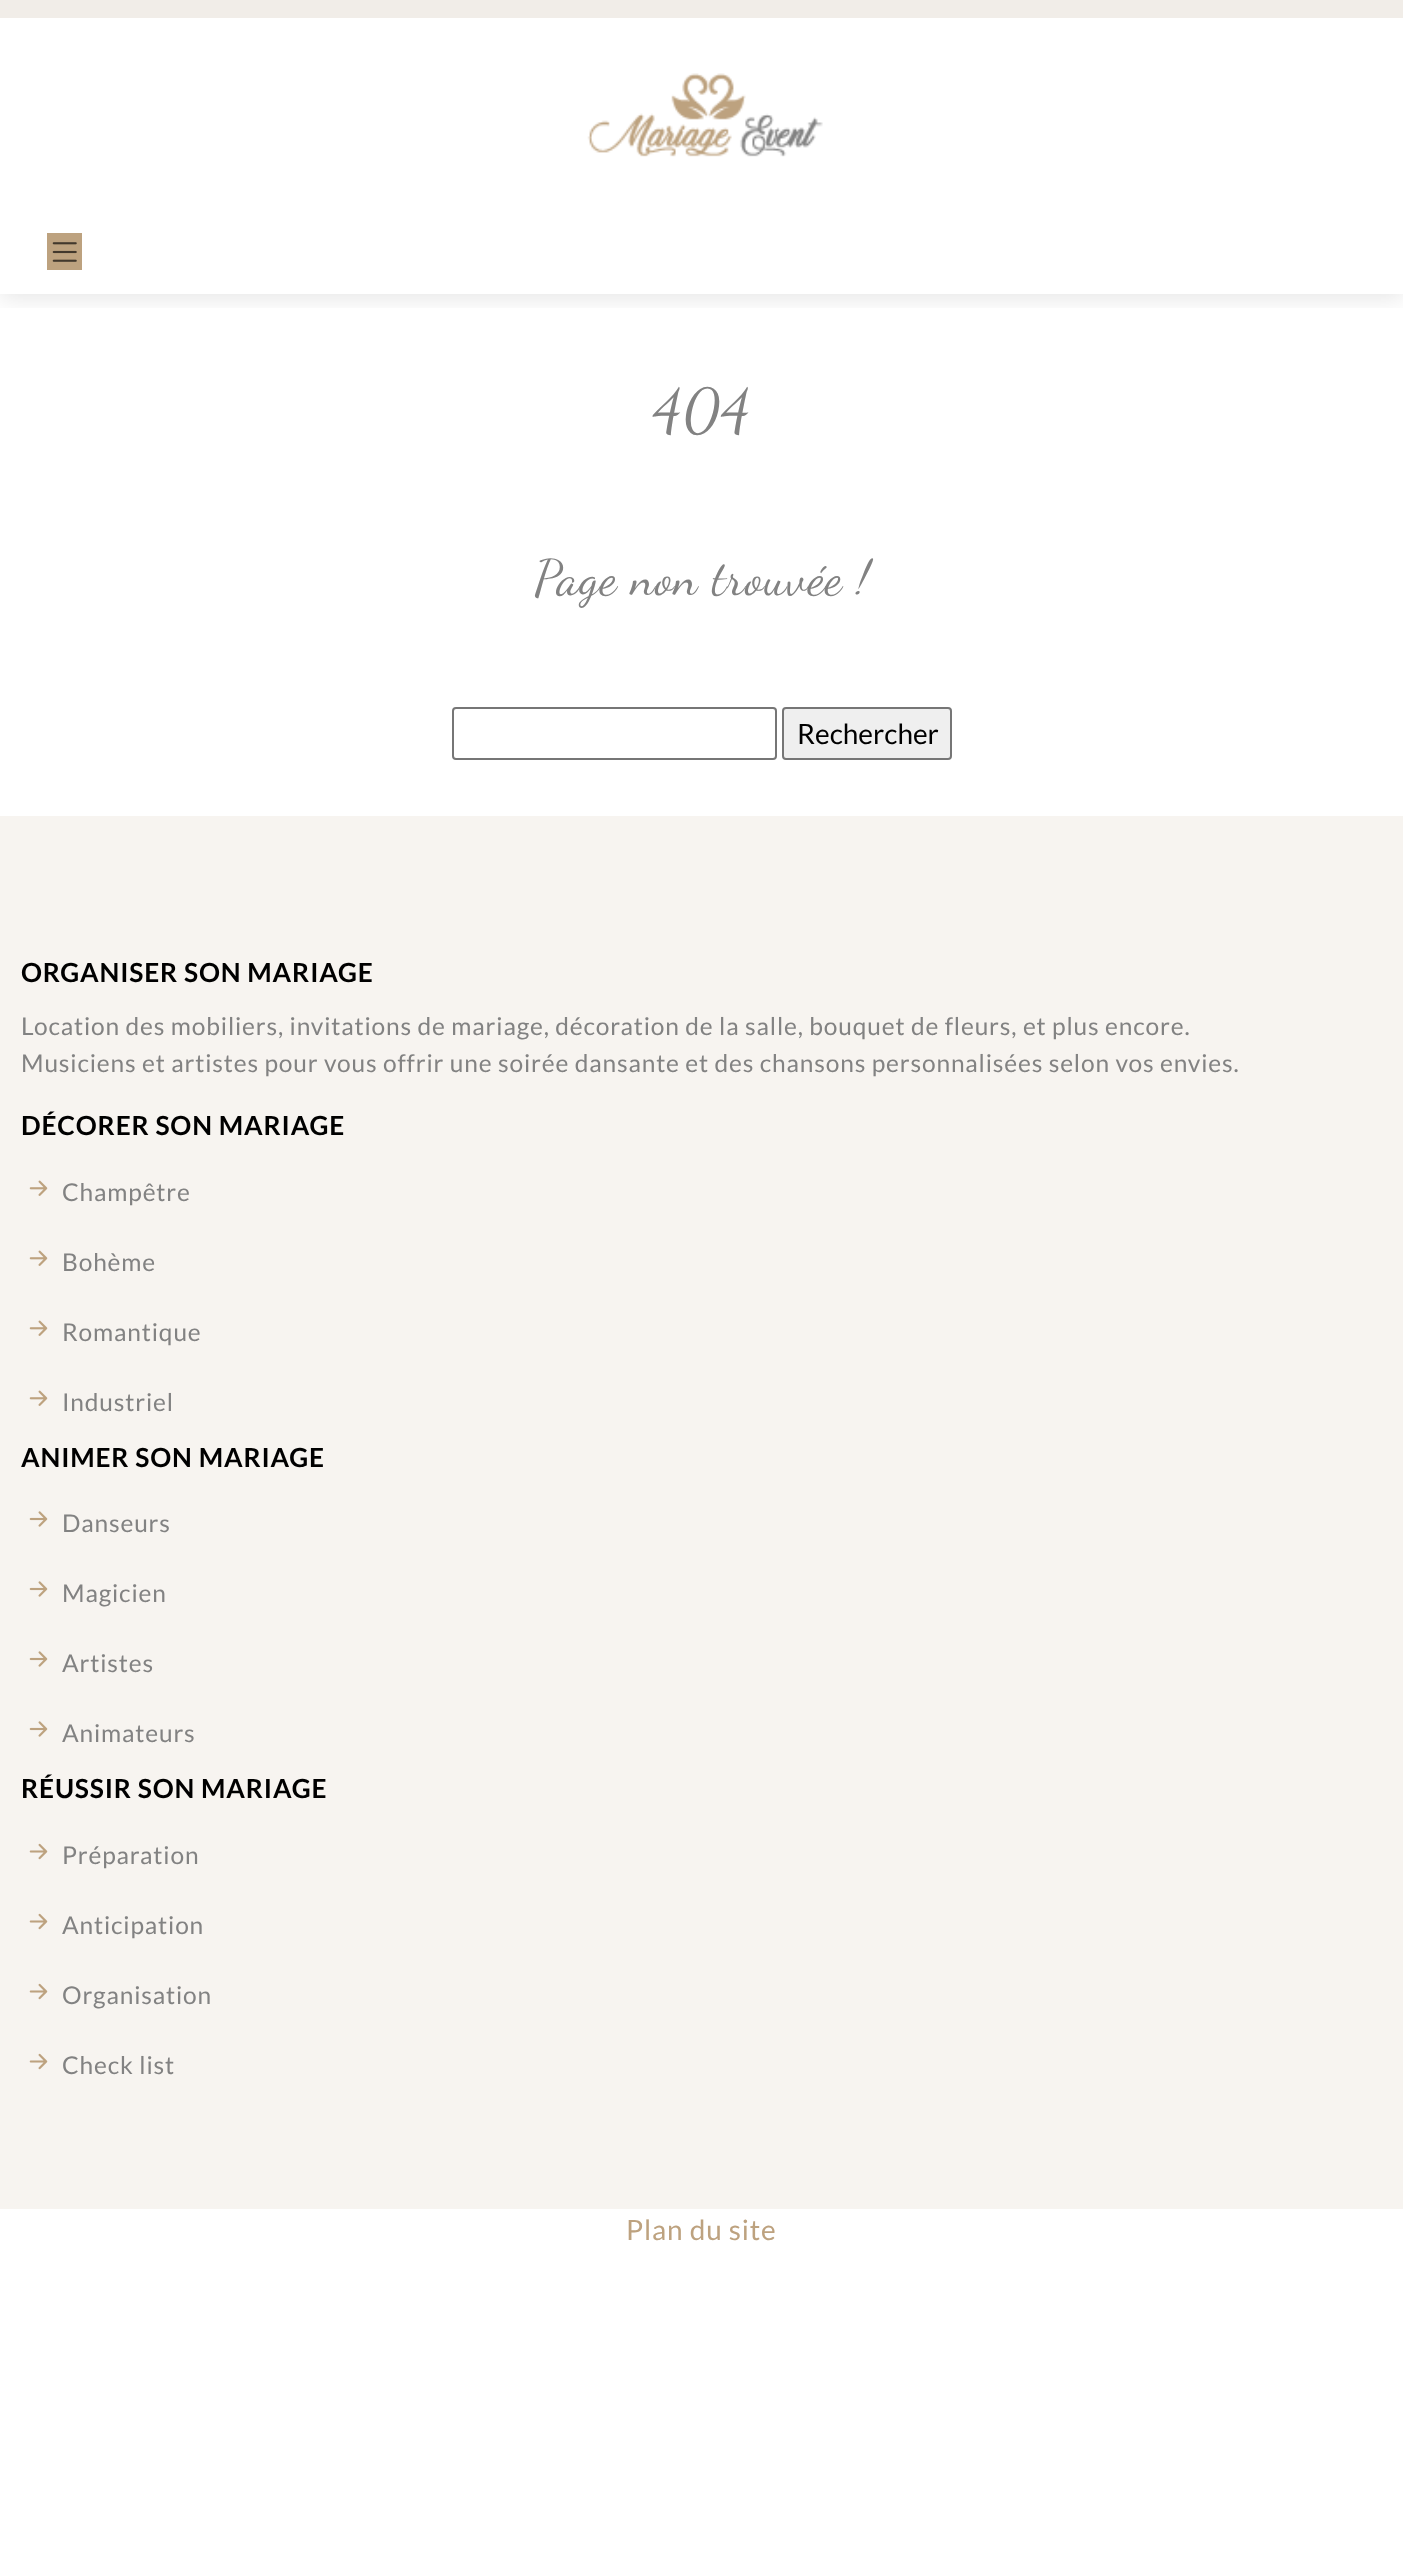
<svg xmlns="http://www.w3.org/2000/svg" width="1403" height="2566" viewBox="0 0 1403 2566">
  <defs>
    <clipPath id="clip1"><rect x="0" y="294" width="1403" height="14"/></clipPath>
    <filter id="blur1" x="-50%" y="-200%" width="200%" height="500%"><feGaussianBlur stdDeviation="11.5"/></filter>
  </defs>
  <rect width="100%" height="100%" fill="#ffffff"/>
  <g clip-path="url(#clip1)">
    <rect x="0" y="4" width="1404" height="294" fill="#000000" fill-opacity="0.1" filter="url(#blur1)"/>
  </g>
  <rect x="0" y="0" width="1403" height="18" fill="#f1ede8"/>
  <image x="587" y="73" width="236" height="84" href="img1.png"/>
  <rect x="47" y="233" width="35" height="37" fill="#bda27f"/>
  <image x="52" y="242" width="25" height="20" href="img2.png"/>
  <text x="653" y="430" font-family="Dancing Script" font-size="60" letter-spacing="0.84" fill="#828282">404</text>
  <text x="534" y="594" font-family="Dancing Script" font-size="49.75" letter-spacing="0.84" fill="#828282">Page non trouvée !</text>
  <rect x="453" y="708" width="323" height="51" rx="3" fill="none" stroke="#767676" stroke-width="2"/>
  <rect x="783" y="708" width="168" height="51" rx="3" fill="#efefef" stroke="#767676" stroke-width="2"/>
  <text x="797" y="744" font-family="Lato" font-size="28" fill="#000000">Rechercher</text>
  <rect x="0" y="816" width="1403" height="1393" fill="#f7f4f0"/>
  <text x="21" y="982" font-family="Lato" font-size="26.25" font-weight="bold" letter-spacing="0.84" fill="#000000">ORGANISER SON MARIAGE</text>
  <text x="21" y="1035" font-family="Lato" font-size="24.5" letter-spacing="0.84" fill="#828282">Location des mobiliers, invitations de mariage, décoration de la salle, bouquet de fleurs, et plus encore.</text>
  <text x="21" y="1072" font-family="Lato" font-size="24.5" letter-spacing="0.84" fill="#828282">Musiciens et artistes pour vous offrir une soirée dansante et des chansons personnalisées selon vos envies.</text>
  <text x="21" y="1135" font-family="Lato" font-size="26.25" font-weight="bold" letter-spacing="0.84" fill="#000000">DÉCORER SON MARIAGE</text>
  <image x="29" y="1180" width="19" height="16" href="img3.png"/>
  <text x="62" y="1201" font-family="Lato" font-size="24.5" letter-spacing="0.84" fill="#828282">Champêtre</text>
  <image x="29" y="1250" width="19" height="16" href="img3.png"/>
  <text x="62" y="1271" font-family="Lato" font-size="24.5" letter-spacing="0.84" fill="#828282">Bohème</text>
  <image x="29" y="1320" width="19" height="16" href="img3.png"/>
  <text x="62" y="1341" font-family="Lato" font-size="24.5" letter-spacing="0.84" fill="#828282">Romantique</text>
  <image x="29" y="1390" width="19" height="16" href="img3.png"/>
  <text x="62" y="1411" font-family="Lato" font-size="24.5" letter-spacing="0.84" fill="#828282">Industriel</text>
  <text x="21" y="1467" font-family="Lato" font-size="26.25" font-weight="bold" letter-spacing="0.84" fill="#000000">ANIMER SON MARIAGE</text>
  <image x="29" y="1511" width="19" height="16" href="img4.png"/>
  <text x="62" y="1532" font-family="Lato" font-size="24.5" letter-spacing="0.84" fill="#828282">Danseurs</text>
  <image x="29" y="1581" width="19" height="16" href="img4.png"/>
  <text x="62" y="1602" font-family="Lato" font-size="24.5" letter-spacing="0.84" fill="#828282">Magicien</text>
  <image x="29" y="1651" width="19" height="16" href="img4.png"/>
  <text x="62" y="1672" font-family="Lato" font-size="24.5" letter-spacing="0.84" fill="#828282">Artistes</text>
  <image x="29" y="1721" width="19" height="16" href="img4.png"/>
  <text x="62" y="1742" font-family="Lato" font-size="24.5" letter-spacing="0.84" fill="#828282">Animateurs</text>
  <text x="21" y="1798" font-family="Lato" font-size="26.25" font-weight="bold" letter-spacing="0.84" fill="#000000">RÉUSSIR SON MARIAGE</text>
  <image x="29" y="1843" width="19" height="17" href="img5.png"/>
  <text x="62" y="1864" font-family="Lato" font-size="24.5" letter-spacing="0.84" fill="#828282">Préparation</text>
  <image x="29" y="1913" width="19" height="17" href="img5.png"/>
  <text x="62" y="1934" font-family="Lato" font-size="24.5" letter-spacing="0.84" fill="#828282">Anticipation</text>
  <image x="29" y="1983" width="19" height="17" href="img5.png"/>
  <text x="62" y="2004" font-family="Lato" font-size="24.5" letter-spacing="0.84" fill="#828282">Organisation</text>
  <image x="29" y="2053" width="19" height="17" href="img5.png"/>
  <text x="62" y="2074" font-family="Lato" font-size="24.5" letter-spacing="0.84" fill="#828282">Check list</text>
  <text x="626" y="2240" font-family="Lato" font-size="28" letter-spacing="0.84" fill="#bda27f">Plan du site</text>
</svg>
